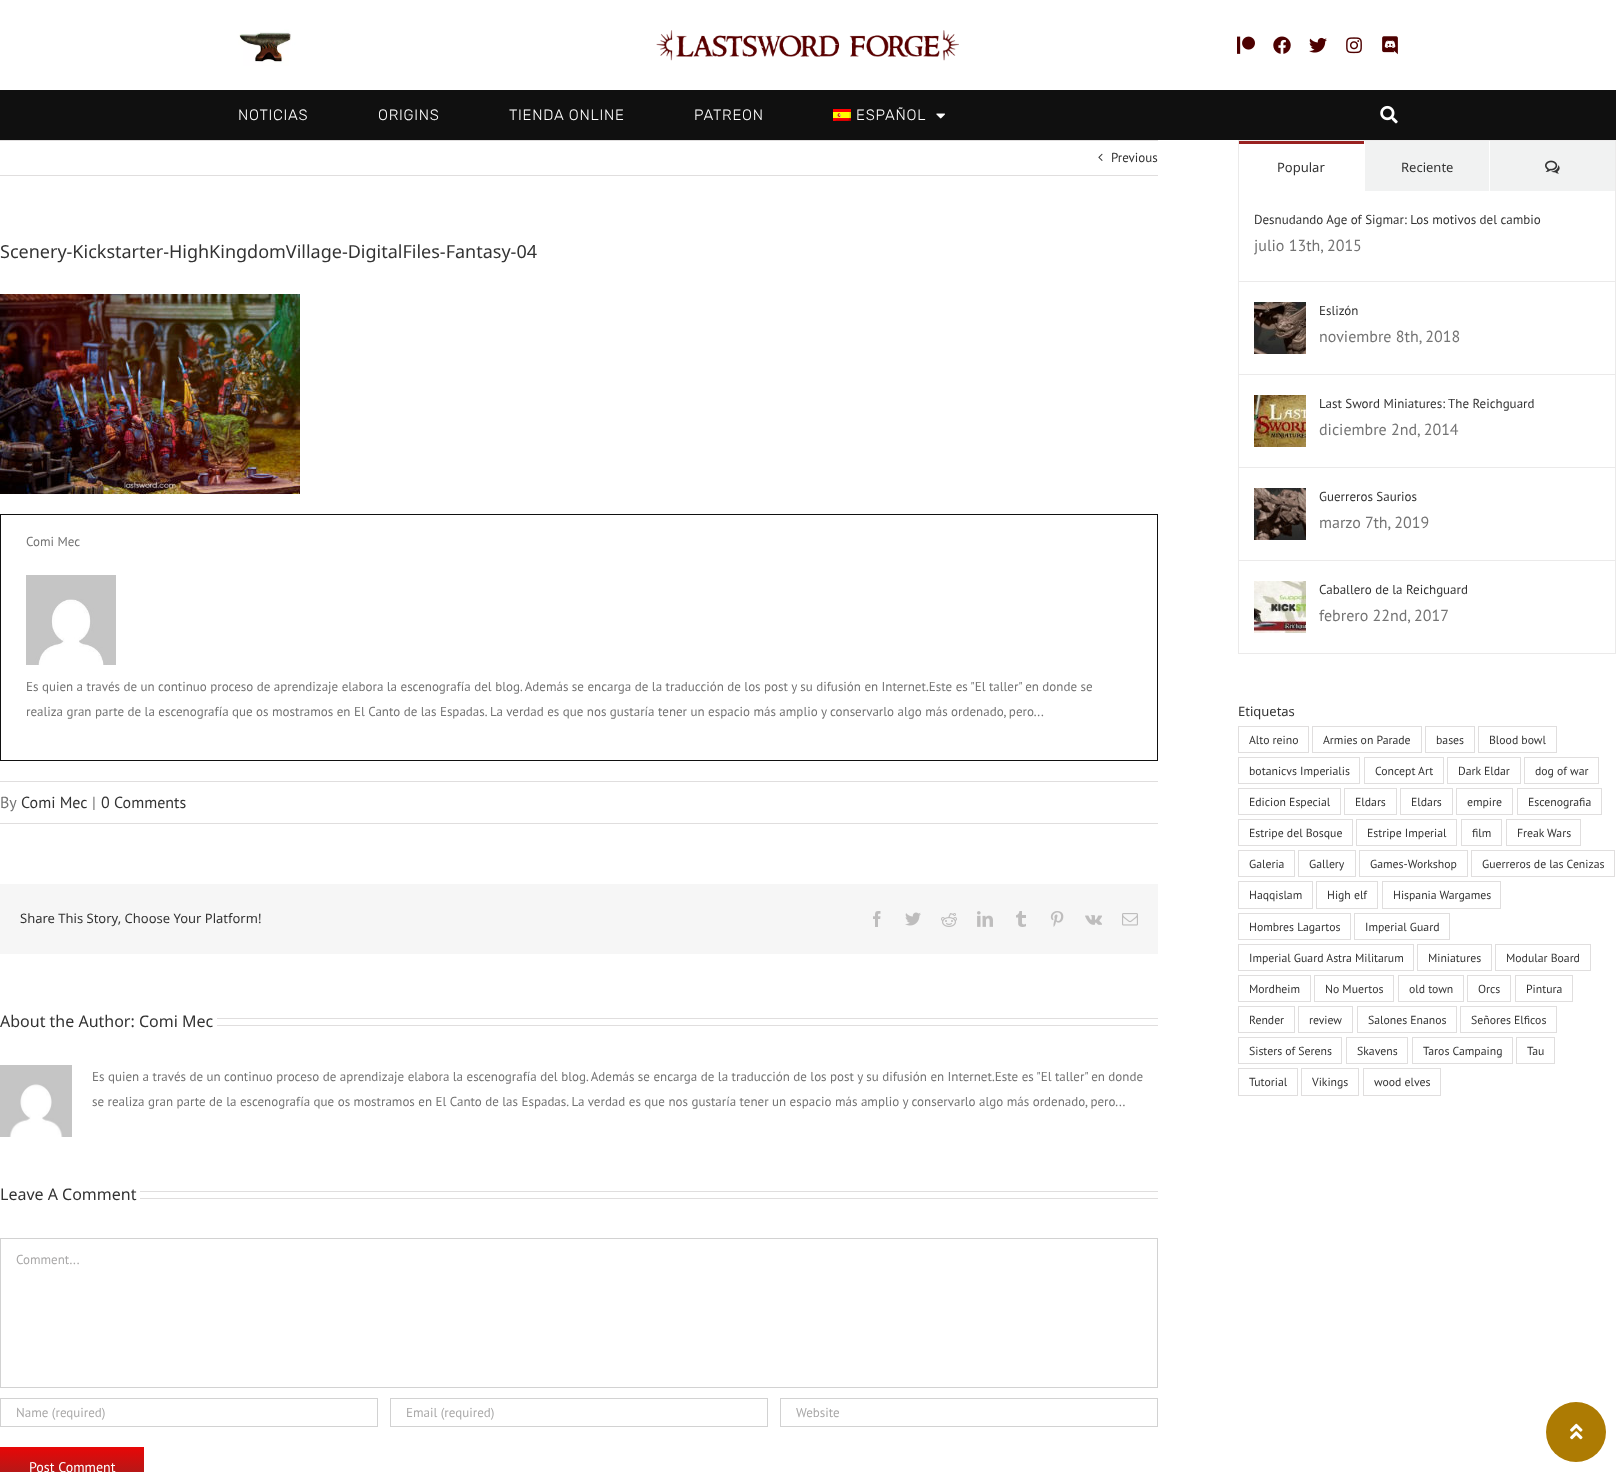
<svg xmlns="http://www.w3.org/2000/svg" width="1616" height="1472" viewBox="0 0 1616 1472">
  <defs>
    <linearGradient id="g1" gradientUnits="userSpaceOnUse" x1="72" y1="1447" x2="72" y2="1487"><stop offset="0" stop-color="#e80707"/><stop offset="1" stop-color="#992120"/></linearGradient>
  </defs>
  <rect width="100%" height="100%" fill="#ffffff"/>
  <image x="218" y="24" width="95" height="42" href="img1.png"/>
  <image x="656" y="30" width="303" height="31" href="img2.png"/>
  <image x="1237" y="36" width="18" height="18" href="img3.png"/>
  <image x="1273" y="36" width="18" height="18" href="img4.png"/>
  <image x="1309" y="37" width="18" height="16" href="img5.png"/>
  <image x="1346" y="37" width="16" height="17" href="img6.png"/>
  <image x="1382" y="36" width="16" height="19" href="img7.png"/>
  <rect x="0" y="90" width="1616" height="50" fill="#101010"/>
  <text x="238" y="120" font-family="Rubik" font-size="15" font-weight="300" letter-spacing="0.75" fill="#ffffff">NOTICIAS</text>
  <text x="378" y="120" font-family="Rubik" font-size="15" font-weight="300" letter-spacing="0.75" fill="#ffffff">ORIGINS</text>
  <text x="509" y="120" font-family="Rubik" font-size="15" font-weight="300" letter-spacing="0.75" fill="#ffffff">TIENDA ONLINE</text>
  <text x="694" y="120" font-family="Rubik" font-size="15" font-weight="300" letter-spacing="0.75" fill="#ffffff">PATREON</text>
  <image x="833" y="109" width="18" height="12" href="img8.png"/>
  <text x="856" y="120" font-family="Rubik" font-size="15" font-weight="300" letter-spacing="0.75" fill="#ffffff">ESPAÑOL</text>
  <image x="936" y="113" width="9" height="6" href="img9.png"/>
  <image x="1380" y="105" width="18" height="19" href="img10.png"/>
  <rect x="0" y="140" width="1158" height="1" fill="#e0dede"/>
  <rect x="0" y="175" width="1158" height="1" fill="#e0dede"/>
  <image x="1098" y="153" width="5" height="8" href="img11.png"/>
  <text x="1111" y="162" font-family="PT Sans" font-size="13" fill="#333333">Previous</text>
  <text x="0" y="258" font-family="Noto Sans" font-size="18" fill="#333333">Scenery-Kickstarter-HighKingdomVillage-DigitalFiles-Fantasy-04</text>
  <image x="0" y="294" width="300" height="200" href="img12.png"/>
  <rect x="0.5" y="514.5" width="1157" height="246" fill="none" stroke="#111111"/>
  <text x="26" y="546" font-family="PT Sans" font-size="13" fill="#747474">Comi Mec</text>
  <image x="26" y="575" width="90" height="90" href="img13.png"/>
  <text x="26" y="691" font-family="PT Sans" font-size="13" fill="#747474">Es quien a través de un continuo proceso de aprendizaje elabora la escenografía del blog. Además se encarga de la traducción de los post y su difusión en Internet.Este es "El taller" en donde se</text>
  <text x="26" y="716" font-family="PT Sans" font-size="13" fill="#747474">realiza gran parte de la escenografía que os mostramos en El Canto de las Espadas. La verdad es que nos gustaría tener un espacio más amplio y conservarlo algo más ordenado, pero...</text>
  <rect x="0" y="781" width="1158" height="1" fill="#e0dede"/>
  <rect x="0" y="823" width="1158" height="1" fill="#e0dede"/>
  <text x="0" y="808" font-family="PT Sans" font-size="16" fill="#747474">By</text>
  <text x="21" y="808" font-family="PT Sans" font-size="16" fill="#333333">Comi Mec</text>
  <text x="92" y="808" font-family="PT Sans" font-size="16" fill="#747474">|</text>
  <text x="101" y="808" font-family="PT Sans" font-size="16" fill="#333333">0 Comments</text>
  <rect x="0" y="884" width="1158" height="70" fill="#f6f6f6"/>
  <text x="20" y="923" font-family="Noto Sans" font-size="13" fill="#333333">Share This Story, Choose Your Platform!</text>
  <image x="873" y="911" width="8" height="16" href="img14.png"/>
  <image x="905" y="912" width="16" height="14" href="img15.png"/>
  <image x="941" y="913" width="16" height="14" href="img16.png"/>
  <image x="977" y="911" width="16" height="16" href="img17.png"/>
  <image x="1016" y="911" width="10" height="16" href="img18.png"/>
  <image x="1050" y="911" width="14" height="16" href="img19.png"/>
  <image x="1085" y="915" width="17" height="10" href="img20.png"/>
  <image x="1122" y="913" width="16" height="13" href="img21.png"/>
  <text x="0" y="1027" font-family="Noto Sans" font-size="16" fill="#333333">About the Author: Comi Mec</text>
  <rect x="217" y="1018" width="941" height="1" fill="#e0dede"/>
  <rect x="217" y="1025" width="941" height="1" fill="#e0dede"/>
  <image x="0" y="1065" width="72" height="72" href="img22.png"/>
  <text x="92" y="1081" font-family="PT Sans" font-size="13" fill="#747474">Es quien a través de un continuo proceso de aprendizaje elabora la escenografía del blog. Además se encarga de la traducción de los post y su difusión en Internet.Este es "El taller" en donde</text>
  <text x="92" y="1106" font-family="PT Sans" font-size="13" fill="#747474">se realiza gran parte de la escenografía que os mostramos en El Canto de las Espadas. La verdad es que nos gustaría tener un espacio más amplio y conservarlo algo más ordenado, pero...</text>
  <text x="0" y="1200" font-family="Noto Sans" font-size="16" fill="#333333">Leave A Comment</text>
  <rect x="140" y="1191" width="1018" height="1" fill="#e0dede"/>
  <rect x="140" y="1198" width="1018" height="1" fill="#e0dede"/>
  <rect x="0.5" y="1238.5" width="1157" height="149" fill="none" stroke="#d2d2d2"/>
  <text x="16" y="1264" font-family="PT Sans" font-size="13" fill="#aaa9a9">Comment...</text>
  <rect x="0.5" y="1398.5" width="377" height="28" fill="none" stroke="#d2d2d2"/>
  <text x="16" y="1417" font-family="PT Sans" font-size="13" fill="#aaa9a9">Name (required)</text>
  <rect x="390.5" y="1398.5" width="377" height="28" fill="none" stroke="#d2d2d2"/>
  <text x="406" y="1417" font-family="PT Sans" font-size="13" fill="#aaa9a9">Email (required)</text>
  <rect x="780.5" y="1398.5" width="377" height="28" fill="none" stroke="#d2d2d2"/>
  <text x="796" y="1417" font-family="PT Sans" font-size="13" fill="#aaa9a9">Website</text>
  <rect x="0" y="1447" width="144" height="25" fill="url(#g1)"/>
  <text x="29" y="1472" font-family="PT Sans" font-size="14" fill="#ffffff">Post Comment</text>
  <rect x="1238.5" y="140.5" width="377" height="513" fill="none" stroke="#ebeaea"/>
  <rect x="1239" y="141" width="125" height="3" fill="#992120"/>
  <text x="1277" y="172" font-family="Noto Sans" font-size="13" fill="#333333">Popular</text>
  <rect x="1365" y="141" width="124" height="50" fill="#f1f2f2"/>
  <text x="1401" y="172" font-family="Noto Sans" font-size="13" fill="#333333">Reciente</text>
  <rect x="1490" y="141" width="125" height="50" fill="#f1f2f2"/>
  <image x="1545" y="160" width="15" height="14" href="img23.png"/>
  <rect x="1239" y="281" width="376" height="1" fill="#ebeaea"/>
  <text x="1254" y="224" font-family="PT Sans" font-size="13" fill="#333333">Desnudando Age of Sigmar: Los motivos del cambio</text>
  <text x="1254" y="251" font-family="PT Sans" font-size="16" fill="#747474">julio 13th, 2015</text>
  <rect x="1239" y="374" width="376" height="1" fill="#ebeaea"/>
  <image x="1254" y="302" width="52" height="52" href="img24.png"/>
  <text x="1319" y="315" font-family="PT Sans" font-size="13" fill="#333333">Eslizón</text>
  <text x="1319" y="342" font-family="PT Sans" font-size="16" fill="#747474">noviembre 8th, 2018</text>
  <rect x="1239" y="467" width="376" height="1" fill="#ebeaea"/>
  <image x="1254" y="395" width="52" height="52" href="img25.png"/>
  <text x="1319" y="408" font-family="PT Sans" font-size="13" fill="#333333">Last Sword Miniatures: The Reichguard</text>
  <text x="1319" y="435" font-family="PT Sans" font-size="16" fill="#747474">diciembre 2nd, 2014</text>
  <rect x="1239" y="560" width="376" height="1" fill="#ebeaea"/>
  <image x="1254" y="488" width="52" height="52" href="img26.png"/>
  <text x="1319" y="501" font-family="PT Sans" font-size="13" fill="#333333">Guerreros Saurios</text>
  <text x="1319" y="528" font-family="PT Sans" font-size="16" fill="#747474">marzo 7th, 2019</text>
  <image x="1254" y="581" width="52" height="52" href="img27.png"/>
  <text x="1319" y="594" font-family="PT Sans" font-size="13" fill="#333333">Caballero de la Reichguard</text>
  <text x="1319" y="621" font-family="PT Sans" font-size="16" fill="#747474">febrero 22nd, 2017</text>
  <text x="1238" y="716" font-family="Noto Sans" font-size="13" fill="#333333">Etiquetas</text>
  <rect x="1238.5" y="726.5" width="70" height="26" fill="none" stroke="#e0dede"/>
  <text x="1249" y="744" font-family="PT Sans" font-size="11.75" fill="#333333">Alto reino</text>
  <rect x="1312.5" y="726.5" width="109" height="26" fill="none" stroke="#e0dede"/>
  <text x="1323" y="744" font-family="PT Sans" font-size="11.75" fill="#333333">Armies on Parade</text>
  <rect x="1425.5" y="726.5" width="49" height="26" fill="none" stroke="#e0dede"/>
  <text x="1436" y="744" font-family="PT Sans" font-size="11.75" fill="#333333">bases</text>
  <rect x="1478.5" y="726.5" width="78" height="26" fill="none" stroke="#e0dede"/>
  <text x="1489" y="744" font-family="PT Sans" font-size="11.75" fill="#333333">Blood bowl</text>
  <rect x="1238.5" y="757.5" width="121" height="26" fill="none" stroke="#e0dede"/>
  <text x="1249" y="775" font-family="PT Sans" font-size="11.75" fill="#333333">botanicvs Imperialis</text>
  <rect x="1364.5" y="757.5" width="79" height="26" fill="none" stroke="#e0dede"/>
  <text x="1375" y="775" font-family="PT Sans" font-size="11.75" fill="#333333">Concept Art</text>
  <rect x="1447.5" y="757.5" width="73" height="26" fill="none" stroke="#e0dede"/>
  <text x="1458" y="775" font-family="PT Sans" font-size="11.75" fill="#333333">Dark Eldar</text>
  <rect x="1524.5" y="757.5" width="74" height="26" fill="none" stroke="#e0dede"/>
  <text x="1535" y="775" font-family="PT Sans" font-size="11.75" fill="#333333">dog of war</text>
  <rect x="1238.5" y="788.5" width="102" height="26" fill="none" stroke="#e0dede"/>
  <text x="1249" y="806" font-family="PT Sans" font-size="11.75" fill="#333333">Edicion Especial</text>
  <rect x="1344.5" y="788.5" width="52" height="26" fill="none" stroke="#e0dede"/>
  <text x="1355" y="806" font-family="PT Sans" font-size="11.75" fill="#333333">Eldars</text>
  <rect x="1400.5" y="788.5" width="52" height="26" fill="none" stroke="#e0dede"/>
  <text x="1411" y="806" font-family="PT Sans" font-size="11.75" fill="#333333">Eldars</text>
  <rect x="1456.5" y="788.5" width="56" height="26" fill="none" stroke="#e0dede"/>
  <text x="1467" y="806" font-family="PT Sans" font-size="11.75" fill="#333333">empire</text>
  <rect x="1517.5" y="788.5" width="84" height="26" fill="none" stroke="#e0dede"/>
  <text x="1528" y="806" font-family="PT Sans" font-size="11.75" fill="#333333">Escenografia</text>
  <rect x="1238.5" y="819.5" width="114" height="26" fill="none" stroke="#e0dede"/>
  <text x="1249" y="837" font-family="PT Sans" font-size="11.75" fill="#333333">Estripe del Bosque</text>
  <rect x="1356.5" y="819.5" width="100" height="26" fill="none" stroke="#e0dede"/>
  <text x="1367" y="837" font-family="PT Sans" font-size="11.75" fill="#333333">Estripe Imperial</text>
  <rect x="1461.5" y="819.5" width="40" height="26" fill="none" stroke="#e0dede"/>
  <text x="1472" y="837" font-family="PT Sans" font-size="11.75" fill="#333333">film</text>
  <rect x="1506.5" y="819.5" width="74" height="26" fill="none" stroke="#e0dede"/>
  <text x="1517" y="837" font-family="PT Sans" font-size="11.75" fill="#333333">Freak Wars</text>
  <rect x="1238.5" y="850.5" width="56" height="26" fill="none" stroke="#e0dede"/>
  <text x="1249" y="868" font-family="PT Sans" font-size="11.75" fill="#333333">Galeria</text>
  <rect x="1298.5" y="850.5" width="57" height="26" fill="none" stroke="#e0dede"/>
  <text x="1309" y="868" font-family="PT Sans" font-size="11.75" fill="#333333">Gallery</text>
  <rect x="1359.5" y="850.5" width="108" height="26" fill="none" stroke="#e0dede"/>
  <text x="1370" y="868" font-family="PT Sans" font-size="11.75" fill="#333333">Games-Workshop</text>
  <rect x="1471.5" y="850.5" width="143" height="26" fill="none" stroke="#e0dede"/>
  <text x="1482" y="868" font-family="PT Sans" font-size="11.75" fill="#333333">Guerreros de las Cenizas</text>
  <rect x="1238.5" y="881.5" width="74" height="27" fill="none" stroke="#e0dede"/>
  <text x="1249" y="899" font-family="PT Sans" font-size="11.75" fill="#333333">Haqqislam</text>
  <rect x="1316.5" y="881.5" width="61" height="27" fill="none" stroke="#e0dede"/>
  <text x="1327" y="899" font-family="PT Sans" font-size="11.75" fill="#333333">High elf</text>
  <rect x="1382.5" y="881.5" width="118" height="27" fill="none" stroke="#e0dede"/>
  <text x="1393" y="899" font-family="PT Sans" font-size="11.75" fill="#333333">Hispania Wargames</text>
  <rect x="1238.5" y="913.5" width="112" height="26" fill="none" stroke="#e0dede"/>
  <text x="1249" y="931" font-family="PT Sans" font-size="11.75" fill="#333333">Hombres Lagartos</text>
  <rect x="1354.5" y="913.5" width="95" height="26" fill="none" stroke="#e0dede"/>
  <text x="1365" y="931" font-family="PT Sans" font-size="11.75" fill="#333333">Imperial Guard</text>
  <rect x="1238.5" y="944.5" width="175" height="26" fill="none" stroke="#e0dede"/>
  <text x="1249" y="962" font-family="PT Sans" font-size="11.75" fill="#333333">Imperial Guard Astra Militarum</text>
  <rect x="1417.5" y="944.5" width="74" height="26" fill="none" stroke="#e0dede"/>
  <text x="1428" y="962" font-family="PT Sans" font-size="11.75" fill="#333333">Miniatures</text>
  <rect x="1495.5" y="944.5" width="95" height="26" fill="none" stroke="#e0dede"/>
  <text x="1506" y="962" font-family="PT Sans" font-size="11.75" fill="#333333">Modular Board</text>
  <rect x="1238.5" y="975.5" width="72" height="26" fill="none" stroke="#e0dede"/>
  <text x="1249" y="993" font-family="PT Sans" font-size="11.75" fill="#333333">Mordheim</text>
  <rect x="1314.5" y="975.5" width="79" height="26" fill="none" stroke="#e0dede"/>
  <text x="1325" y="993" font-family="PT Sans" font-size="11.75" fill="#333333">No Muertos</text>
  <rect x="1398.5" y="975.5" width="65" height="26" fill="none" stroke="#e0dede"/>
  <text x="1409" y="993" font-family="PT Sans" font-size="11.75" fill="#333333">old town</text>
  <rect x="1467.5" y="975.5" width="43" height="26" fill="none" stroke="#e0dede"/>
  <text x="1478" y="993" font-family="PT Sans" font-size="11.75" fill="#333333">Orcs</text>
  <rect x="1515.5" y="975.5" width="57" height="26" fill="none" stroke="#e0dede"/>
  <text x="1526" y="993" font-family="PT Sans" font-size="11.75" fill="#333333">Pintura</text>
  <rect x="1238.5" y="1006.5" width="56" height="26" fill="none" stroke="#e0dede"/>
  <text x="1249" y="1024" font-family="PT Sans" font-size="11.75" fill="#333333">Render</text>
  <rect x="1298.5" y="1006.5" width="54" height="26" fill="none" stroke="#e0dede"/>
  <text x="1309" y="1024" font-family="PT Sans" font-size="11.75" fill="#333333">review</text>
  <rect x="1357.5" y="1006.5" width="99" height="26" fill="none" stroke="#e0dede"/>
  <text x="1368" y="1024" font-family="PT Sans" font-size="11.75" fill="#333333">Salones Enanos</text>
  <rect x="1460.5" y="1006.5" width="96" height="26" fill="none" stroke="#e0dede"/>
  <text x="1471" y="1024" font-family="PT Sans" font-size="11.75" fill="#333333">Señores Elficos</text>
  <rect x="1238.5" y="1037.5" width="103" height="26" fill="none" stroke="#e0dede"/>
  <text x="1249" y="1055" font-family="PT Sans" font-size="11.75" fill="#333333">Sisters of Serens</text>
  <rect x="1346.5" y="1037.5" width="61" height="26" fill="none" stroke="#e0dede"/>
  <text x="1357" y="1055" font-family="PT Sans" font-size="11.75" fill="#333333">Skavens</text>
  <rect x="1412.5" y="1037.5" width="100" height="26" fill="none" stroke="#e0dede"/>
  <text x="1423" y="1055" font-family="PT Sans" font-size="11.75" fill="#333333">Taros Campaing</text>
  <rect x="1516.5" y="1037.5" width="38" height="26" fill="none" stroke="#e0dede"/>
  <text x="1527" y="1055" font-family="PT Sans" font-size="11.75" fill="#333333">Tau</text>
  <rect x="1238.5" y="1068.5" width="59" height="27" fill="none" stroke="#e0dede"/>
  <text x="1249" y="1086" font-family="PT Sans" font-size="11.75" fill="#333333">Tutorial</text>
  <rect x="1301.5" y="1068.5" width="57" height="27" fill="none" stroke="#e0dede"/>
  <text x="1312" y="1086" font-family="PT Sans" font-size="11.75" fill="#333333">Vikings</text>
  <rect x="1363.5" y="1068.5" width="77" height="27" fill="none" stroke="#e0dede"/>
  <text x="1374" y="1086" font-family="PT Sans" font-size="11.75" fill="#333333">wood elves</text>
  <circle cx="1576" cy="1432" r="30" fill="#ad7b03"/>
  <image x="1570" y="1423" width="13" height="17" href="img28.png"/>
</svg>
